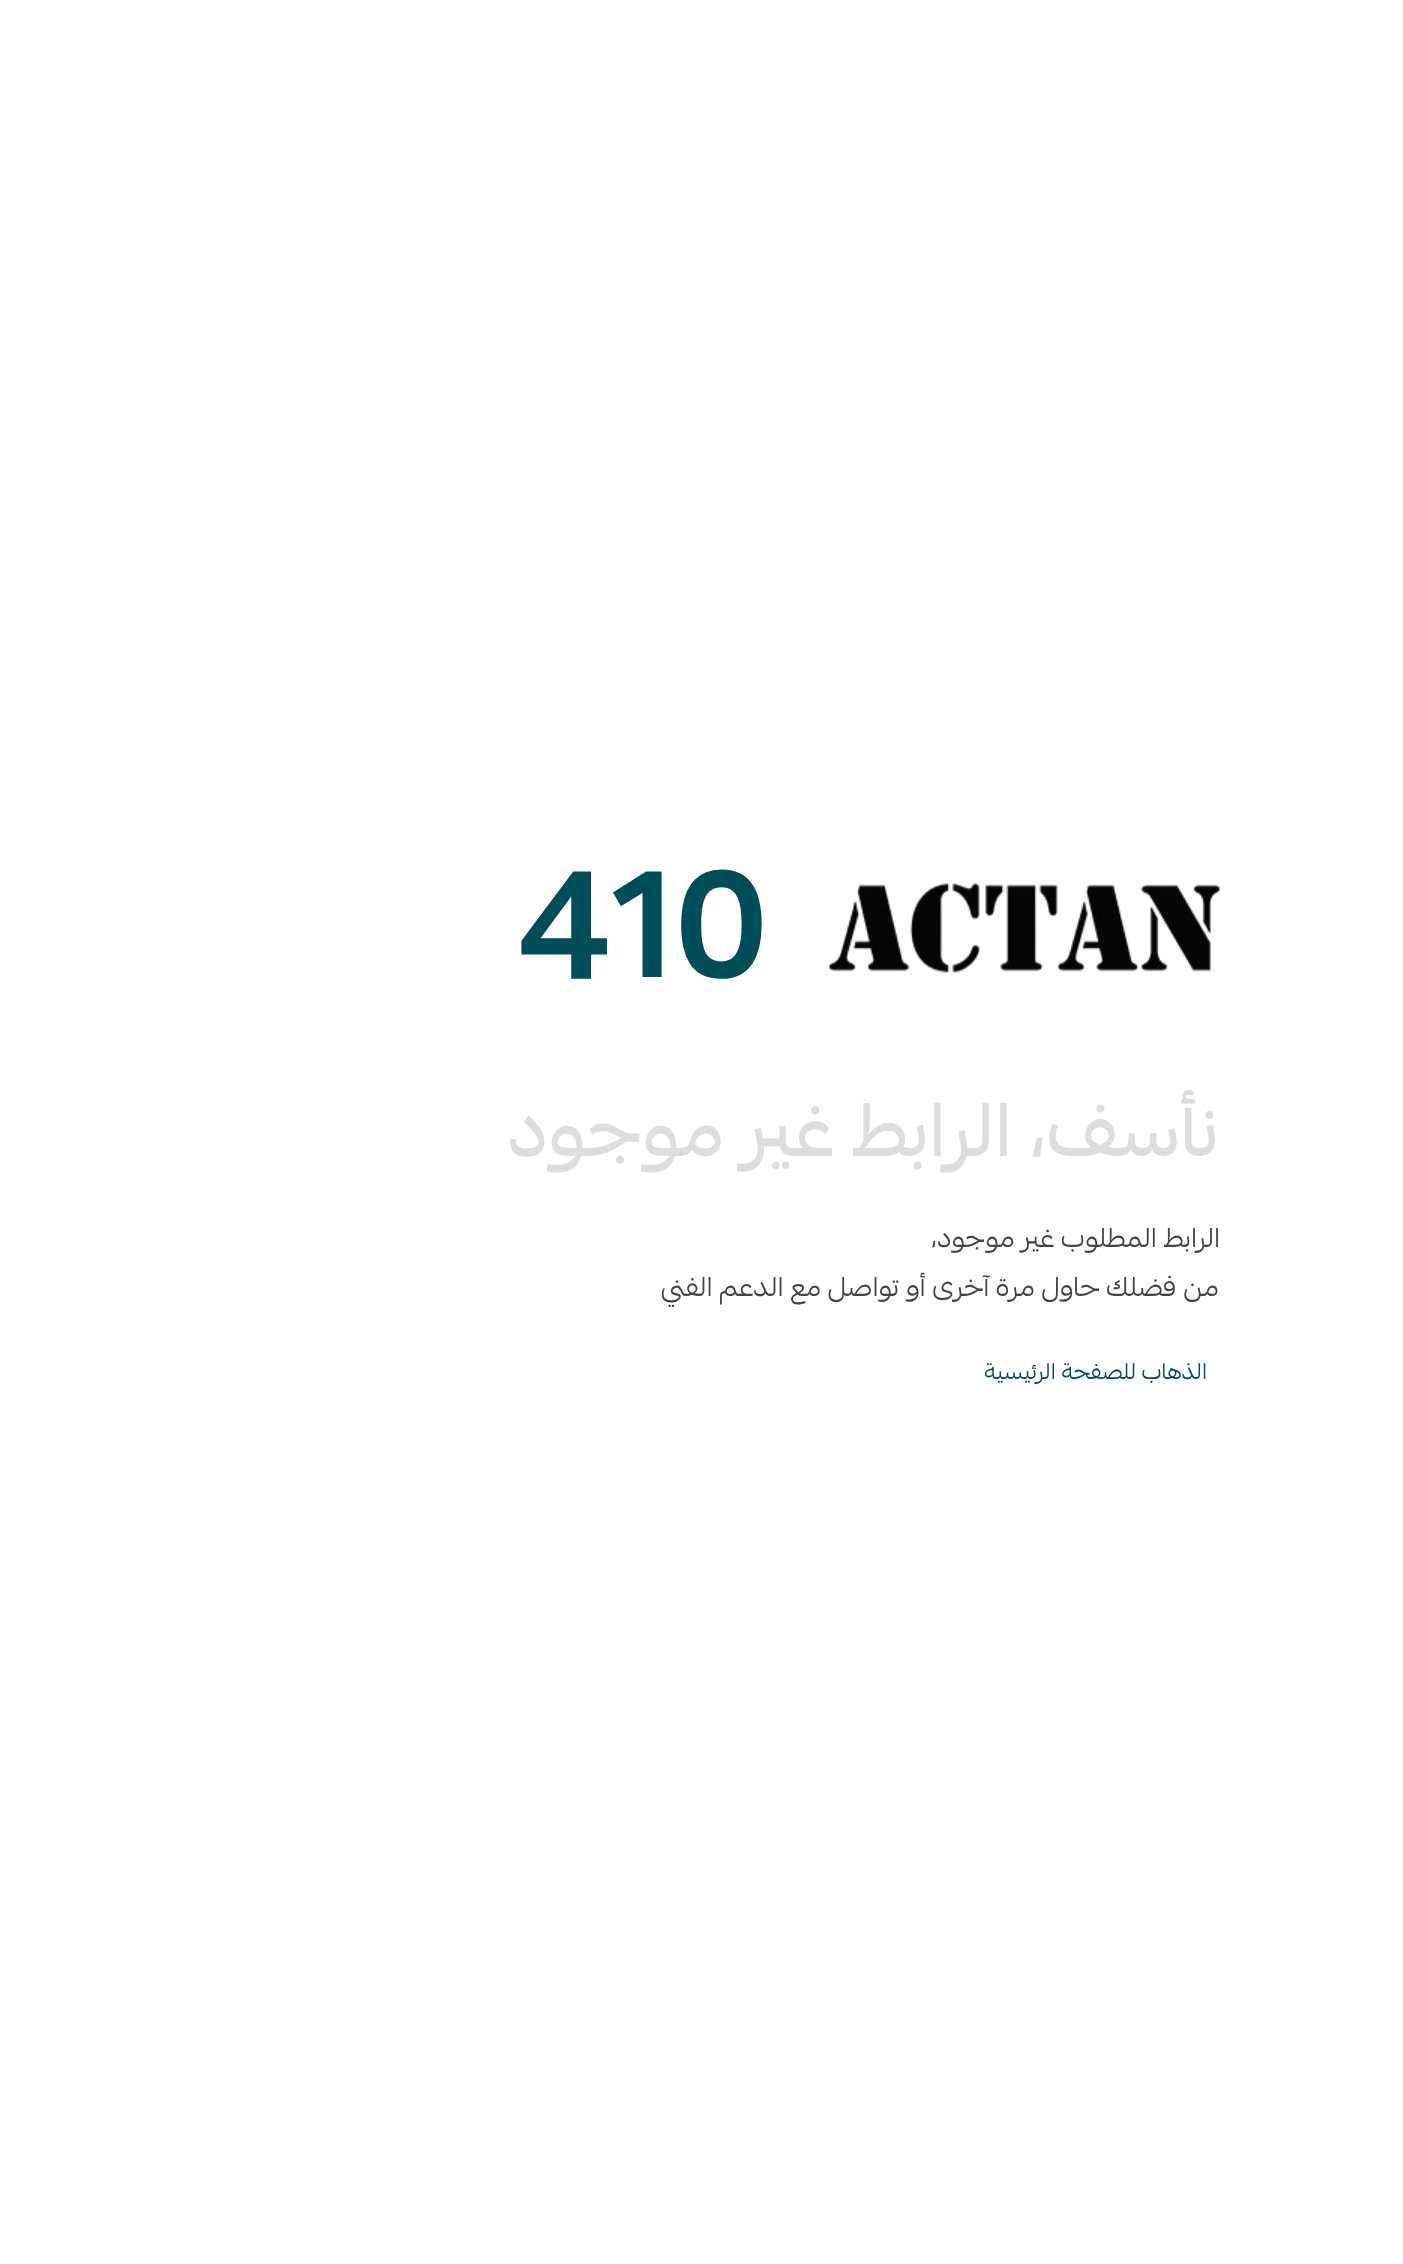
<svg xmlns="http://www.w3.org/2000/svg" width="1403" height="2264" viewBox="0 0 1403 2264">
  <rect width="100%" height="100%" fill="#ffffff"/>
  <image x="829" y="883" width="391" height="91" href="img1.png"/>
  <text x="518" y="977" font-family="'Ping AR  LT'" font-size="150" font-weight="bold" fill="#004d5a">410</text>
  <text x="1219" y="1156" font-family="'Ping AR  LT'" font-size="75" font-weight="500" direction="rtl" fill="#dddddd">نأسف، الرابط غير موجود</text>
  <text x="1220" y="1247" font-family="'Ping AR  LT'" font-size="27" direction="rtl" fill="#444444">الرابط المطلوب غير موجود،</text>
  <text x="1219" y="1296" font-family="'Ping AR  LT'" font-size="27" direction="rtl" fill="#444444">من فضلك حاول مرة آخرى أو تواصل مع الدعم الفني</text>
  <text x="1207" y="1379" font-family="'Ping AR  LT'" font-size="22.5" direction="rtl" fill="#004d5a">الذهاب للصفحة الرئيسية</text>
</svg>
